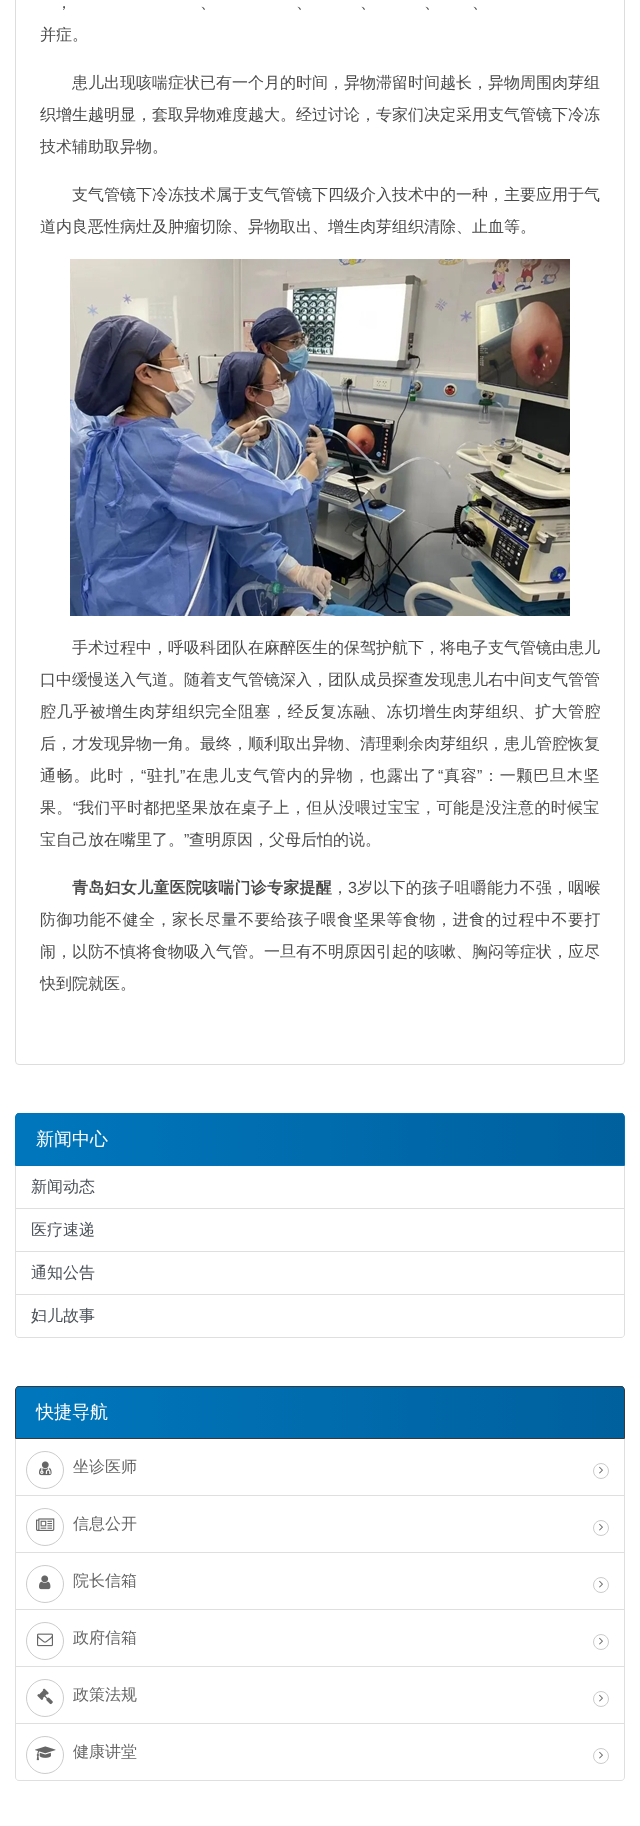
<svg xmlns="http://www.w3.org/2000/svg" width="640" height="1826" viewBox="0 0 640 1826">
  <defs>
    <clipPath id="clip1"><path d="M19 1113H621C623 1113 625 1115 625 1117V1166H15V1117C15 1115 17 1113 19 1113Z"/></clipPath>
    <linearGradient id="g1" gradientUnits="userSpaceOnUse" x1="16" y1="1140" x2="624" y2="1140"><stop offset="0" stop-color="#0077bd"/><stop offset="1" stop-color="#00609e"/></linearGradient>
    <clipPath id="clip2"><path d="M19 1386H621C623 1386 625 1388 625 1390V1439H15V1390C15 1388 17 1386 19 1386Z"/></clipPath>
    <linearGradient id="g2" gradientUnits="userSpaceOnUse" x1="16" y1="1413" x2="624" y2="1413"><stop offset="0" stop-color="#0077bd"/><stop offset="1" stop-color="#00609e"/></linearGradient>
  </defs>
  <rect width="100%" height="100%" fill="#ffffff"/>
  <rect x="15.5" y="-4.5" width="609" height="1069" rx="3.5" fill="none" stroke="#dddddd"/>
  <text x="56" y="8" font-family="WenQuanYi Zen Hei" font-size="16" font-weight="500" fill="#4a4a4a">，</text>
  <text x="200" y="8" font-family="WenQuanYi Zen Hei" font-size="16" font-weight="500" fill="#4a4a4a">、</text>
  <text x="296" y="8" font-family="WenQuanYi Zen Hei" font-size="16" font-weight="500" fill="#4a4a4a">、</text>
  <text x="360" y="8" font-family="WenQuanYi Zen Hei" font-size="16" font-weight="500" fill="#4a4a4a">、</text>
  <text x="424" y="8" font-family="WenQuanYi Zen Hei" font-size="16" font-weight="500" fill="#4a4a4a">、</text>
  <text x="472" y="8" font-family="WenQuanYi Zen Hei" font-size="16" font-weight="500" fill="#4a4a4a">、</text>
  <text x="40" y="40" font-family="WenQuanYi Zen Hei" font-size="16" font-weight="500" fill="#4a4a4a">并症。</text>
  <text x="72" y="88" font-family="WenQuanYi Zen Hei" font-size="16" font-weight="500" fill="#4a4a4a">患儿出现咳喘症状已有一个月的时间，异物滞留时间越长，异物周围肉芽组</text>
  <text x="40" y="120" font-family="WenQuanYi Zen Hei" font-size="16" font-weight="500" fill="#4a4a4a">织增生越明显，套取异物难度越大。经过讨论，专家们决定采用支气管镜下冷冻</text>
  <text x="40" y="152" font-family="WenQuanYi Zen Hei" font-size="16" font-weight="500" fill="#4a4a4a">技术辅助取异物。</text>
  <text x="72" y="200" font-family="WenQuanYi Zen Hei" font-size="16" font-weight="500" fill="#4a4a4a">支气管镜下冷冻技术属于支气管镜下四级介入技术中的一种，主要应用于气</text>
  <text x="40" y="232" font-family="WenQuanYi Zen Hei" font-size="16" font-weight="500" fill="#4a4a4a">道内良恶性病灶及肿瘤切除、异物取出、增生肉芽组织清除、止血等。</text>
  <image x="70" y="259" width="500" height="357" href="img1.png"/>
  <text x="72" y="653" font-family="WenQuanYi Zen Hei" font-size="16" font-weight="500" fill="#4a4a4a">手术过程中，呼吸科团队在麻醉医生的保驾护航下，将电子支气管镜由患儿</text>
  <text x="40" y="685" font-family="WenQuanYi Zen Hei" font-size="16" font-weight="500" fill="#4a4a4a">口中缓慢送入气道。随着支气管镜深入，团队成员探查发现患儿右中间支气管管</text>
  <text x="40" y="717" font-family="WenQuanYi Zen Hei" font-size="16" font-weight="500" letter-spacing="0.5" fill="#4a4a4a">腔几乎被增生肉芽组织完全阻塞，经反复冻融、冻切增生肉芽组织、扩大管腔</text>
  <text x="40" y="749" font-family="WenQuanYi Zen Hei" font-size="16" font-weight="500" fill="#4a4a4a">后，才发现异物一角。最终，顺利取出异物、清理剩余肉芽组织，患儿管腔恢复</text>
  <text x="40" y="781" font-family="WenQuanYi Zen Hei" font-size="16" font-weight="500" letter-spacing="0.75" fill="#4a4a4a">通畅。此时，</text>
  <text x="141" y="781" font-family="Liberation Sans" font-size="16" letter-spacing="0.75" fill="#4a4a4a">“</text>
  <text x="147" y="781" font-family="WenQuanYi Zen Hei" font-size="16" font-weight="500" letter-spacing="0.75" fill="#4a4a4a">驻扎</text>
  <text x="180" y="781" font-family="Liberation Sans" font-size="16" letter-spacing="0.75" fill="#4a4a4a">”</text>
  <text x="186" y="781" font-family="WenQuanYi Zen Hei" font-size="16" font-weight="500" letter-spacing="0.75" fill="#4a4a4a">在患儿支气管内的异物，也露出了</text>
  <text x="438" y="781" font-family="Liberation Sans" font-size="16" letter-spacing="0.75" fill="#4a4a4a">“</text>
  <text x="444" y="781" font-family="WenQuanYi Zen Hei" font-size="16" font-weight="500" letter-spacing="0.75" fill="#4a4a4a">真容</text>
  <text x="477" y="781" font-family="Liberation Sans" font-size="16" letter-spacing="0.75" fill="#4a4a4a">”</text>
  <text x="483" y="781" font-family="WenQuanYi Zen Hei" font-size="16" font-weight="500" letter-spacing="0.75" fill="#4a4a4a">：一颗巴旦木坚</text>
  <text x="40" y="813" font-family="WenQuanYi Zen Hei" font-size="16" font-weight="500" letter-spacing="0.3" fill="#4a4a4a">果。</text>
  <text x="73" y="813" font-family="Liberation Sans" font-size="16" letter-spacing="0.3" fill="#4a4a4a">“</text>
  <text x="78" y="813" font-family="WenQuanYi Zen Hei" font-size="16" font-weight="500" letter-spacing="0.3" fill="#4a4a4a">我们平时都把坚果放在桌子上，但从没喂过宝宝，可能是没注意的时候宝</text>
  <text x="40" y="845" font-family="WenQuanYi Zen Hei" font-size="16" font-weight="500" fill="#4a4a4a">宝自己放在嘴里了。</text>
  <text x="184" y="845" font-family="Liberation Sans" font-size="16" fill="#4a4a4a">”</text>
  <text x="189" y="845" font-family="WenQuanYi Zen Hei" font-size="16" font-weight="500" fill="#4a4a4a">查明原因，父母后怕的说。</text>
  <text x="72" y="893" font-family="WenQuanYi Zen Hei" font-size="16" font-weight="bold" letter-spacing="0.25" fill="#4a4a4a">青岛妇女儿童医院咳喘门诊专家提醒</text>
  <text x="332" y="893" font-family="WenQuanYi Zen Hei" font-size="16" font-weight="500" letter-spacing="0.25" fill="#4a4a4a">，</text>
  <text x="348" y="893" font-family="Liberation Sans" font-size="16" letter-spacing="0.25" fill="#4a4a4a">3</text>
  <text x="357" y="893" font-family="WenQuanYi Zen Hei" font-size="16" font-weight="500" letter-spacing="0.25" fill="#4a4a4a">岁以下的孩子咀嚼能力不强，咽喉</text>
  <text x="40" y="925" font-family="WenQuanYi Zen Hei" font-size="16" font-weight="500" letter-spacing="0.5" fill="#4a4a4a">防御功能不健全，家长尽量不要给孩子喂食坚果等食物，进食的过程中不要打</text>
  <text x="40" y="957" font-family="WenQuanYi Zen Hei" font-size="16" font-weight="500" fill="#4a4a4a">闹，以防不慎将食物吸入气管。一旦有不明原因引起的咳嗽、胸闷等症状，应尽</text>
  <text x="40" y="989" font-family="WenQuanYi Zen Hei" font-size="16" font-weight="500" fill="#4a4a4a">快到院就医。</text>
  <g clip-path="url(#clip1)">
    <rect x="16" y="1113" width="608" height="52" fill="url(#g1)"/>
  </g>
  <rect x="15.5" y="1165.5" width="609" height="43" fill="none" stroke="#dfdfdf"/>
  <path d="M19 1113.5H621C623 1113.5 624.5 1115 624.5 1117V1165.5H15.5V1117C15.5 1115 17 1113.5 19 1113.5Z" fill="none" stroke="#0073bd"/>
  <text x="36" y="1145" font-family="WenQuanYi Zen Hei" font-size="18" font-weight="500" fill="#ffffff">新闻中心</text>
  <text x="31" y="1192" font-family="WenQuanYi Zen Hei" font-size="16" font-weight="500" fill="#495057">新闻动态</text>
  <rect x="15.5" y="1208.5" width="609" height="43" fill="none" stroke="#dfdfdf"/>
  <text x="31" y="1235" font-family="WenQuanYi Zen Hei" font-size="16" font-weight="500" fill="#495057">医疗速递</text>
  <rect x="15.5" y="1251.5" width="609" height="43" fill="none" stroke="#dfdfdf"/>
  <text x="31" y="1278" font-family="WenQuanYi Zen Hei" font-size="16" font-weight="500" fill="#495057">通知公告</text>
  <path d="M15.5 1294.5H624.5V1334C624.5 1336 623 1337.5 621 1337.5H19C17 1337.5 15.5 1336 15.5 1334Z" fill="#ffffff" stroke="#dfdfdf"/>
  <text x="31" y="1321" font-family="WenQuanYi Zen Hei" font-size="16" font-weight="500" fill="#495057">妇儿故事</text>
  <g clip-path="url(#clip2)">
    <rect x="16" y="1386" width="608" height="52" fill="url(#g2)"/>
  </g>
  <rect x="15.5" y="1438.5" width="609" height="57" fill="none" stroke="#dfdfdf"/>
  <path d="M19 1386.5H621C623 1386.5 624.5 1388 624.5 1390V1438.5H15.5V1390C15.5 1388 17 1386.5 19 1386.5Z" fill="none" stroke="#343a40"/>
  <text x="36" y="1418" font-family="WenQuanYi Zen Hei" font-size="18" font-weight="500" fill="#ffffff">快捷导航</text>
  <circle cx="45" cy="1470" r="18.5" fill="none" stroke="#cccccc"/>
  <image x="39" y="1461" width="13" height="15" href="img2.png"/>
  <text x="73" y="1472" font-family="WenQuanYi Zen Hei" font-size="16" font-weight="500" fill="#666666">坐诊医师</text>
  <circle cx="601" cy="1471" r="7.5" fill="none" stroke="#cccccc"/>
  <image x="599" y="1466" width="4" height="8" href="img3.png"/>
  <rect x="15.5" y="1495.5" width="609" height="57" fill="none" stroke="#dfdfdf"/>
  <circle cx="45" cy="1527" r="18.5" fill="none" stroke="#cccccc"/>
  <image x="36" y="1518" width="19" height="13" href="img4.png"/>
  <text x="73" y="1529" font-family="WenQuanYi Zen Hei" font-size="16" font-weight="500" fill="#666666">信息公开</text>
  <circle cx="601" cy="1528" r="7.5" fill="none" stroke="#cccccc"/>
  <image x="599" y="1523" width="4" height="8" href="img3.png"/>
  <rect x="15.5" y="1552.5" width="609" height="57" fill="none" stroke="#dfdfdf"/>
  <circle cx="45" cy="1584" r="18.5" fill="none" stroke="#cccccc"/>
  <image x="39" y="1575" width="12" height="15" href="img5.png"/>
  <text x="73" y="1586" font-family="WenQuanYi Zen Hei" font-size="16" font-weight="500" fill="#666666">院长信箱</text>
  <circle cx="601" cy="1585" r="7.5" fill="none" stroke="#cccccc"/>
  <image x="599" y="1580" width="4" height="8" href="img3.png"/>
  <rect x="15.5" y="1609.5" width="609" height="57" fill="none" stroke="#dfdfdf"/>
  <circle cx="45" cy="1641" r="18.5" fill="none" stroke="#cccccc"/>
  <image x="37" y="1633" width="16" height="14" href="img6.png"/>
  <text x="73" y="1643" font-family="WenQuanYi Zen Hei" font-size="16" font-weight="500" fill="#666666">政府信箱</text>
  <circle cx="601" cy="1642" r="7.5" fill="none" stroke="#cccccc"/>
  <image x="599" y="1637" width="4" height="8" href="img3.png"/>
  <rect x="15.5" y="1666.5" width="609" height="57" fill="none" stroke="#dfdfdf"/>
  <circle cx="45" cy="1698" r="18.5" fill="none" stroke="#cccccc"/>
  <image x="37" y="1688" width="16" height="17" href="img7.png"/>
  <text x="73" y="1700" font-family="WenQuanYi Zen Hei" font-size="16" font-weight="500" fill="#666666">政策法规</text>
  <circle cx="601" cy="1699" r="7.5" fill="none" stroke="#cccccc"/>
  <image x="599" y="1694" width="4" height="8" href="img3.png"/>
  <path d="M15.5 1723.5H624.5V1777C624.5 1779 623 1780.5 621 1780.5H19C17 1780.5 15.5 1779 15.5 1777Z" fill="#ffffff" stroke="#dfdfdf"/>
  <circle cx="45" cy="1755" r="18.5" fill="none" stroke="#cccccc"/>
  <image x="35" y="1746" width="21" height="15" href="img8.png"/>
  <text x="73" y="1757" font-family="WenQuanYi Zen Hei" font-size="16" font-weight="500" fill="#666666">健康讲堂</text>
  <circle cx="601" cy="1756" r="7.5" fill="none" stroke="#cccccc"/>
  <image x="599" y="1751" width="4" height="8" href="img3.png"/>
</svg>
